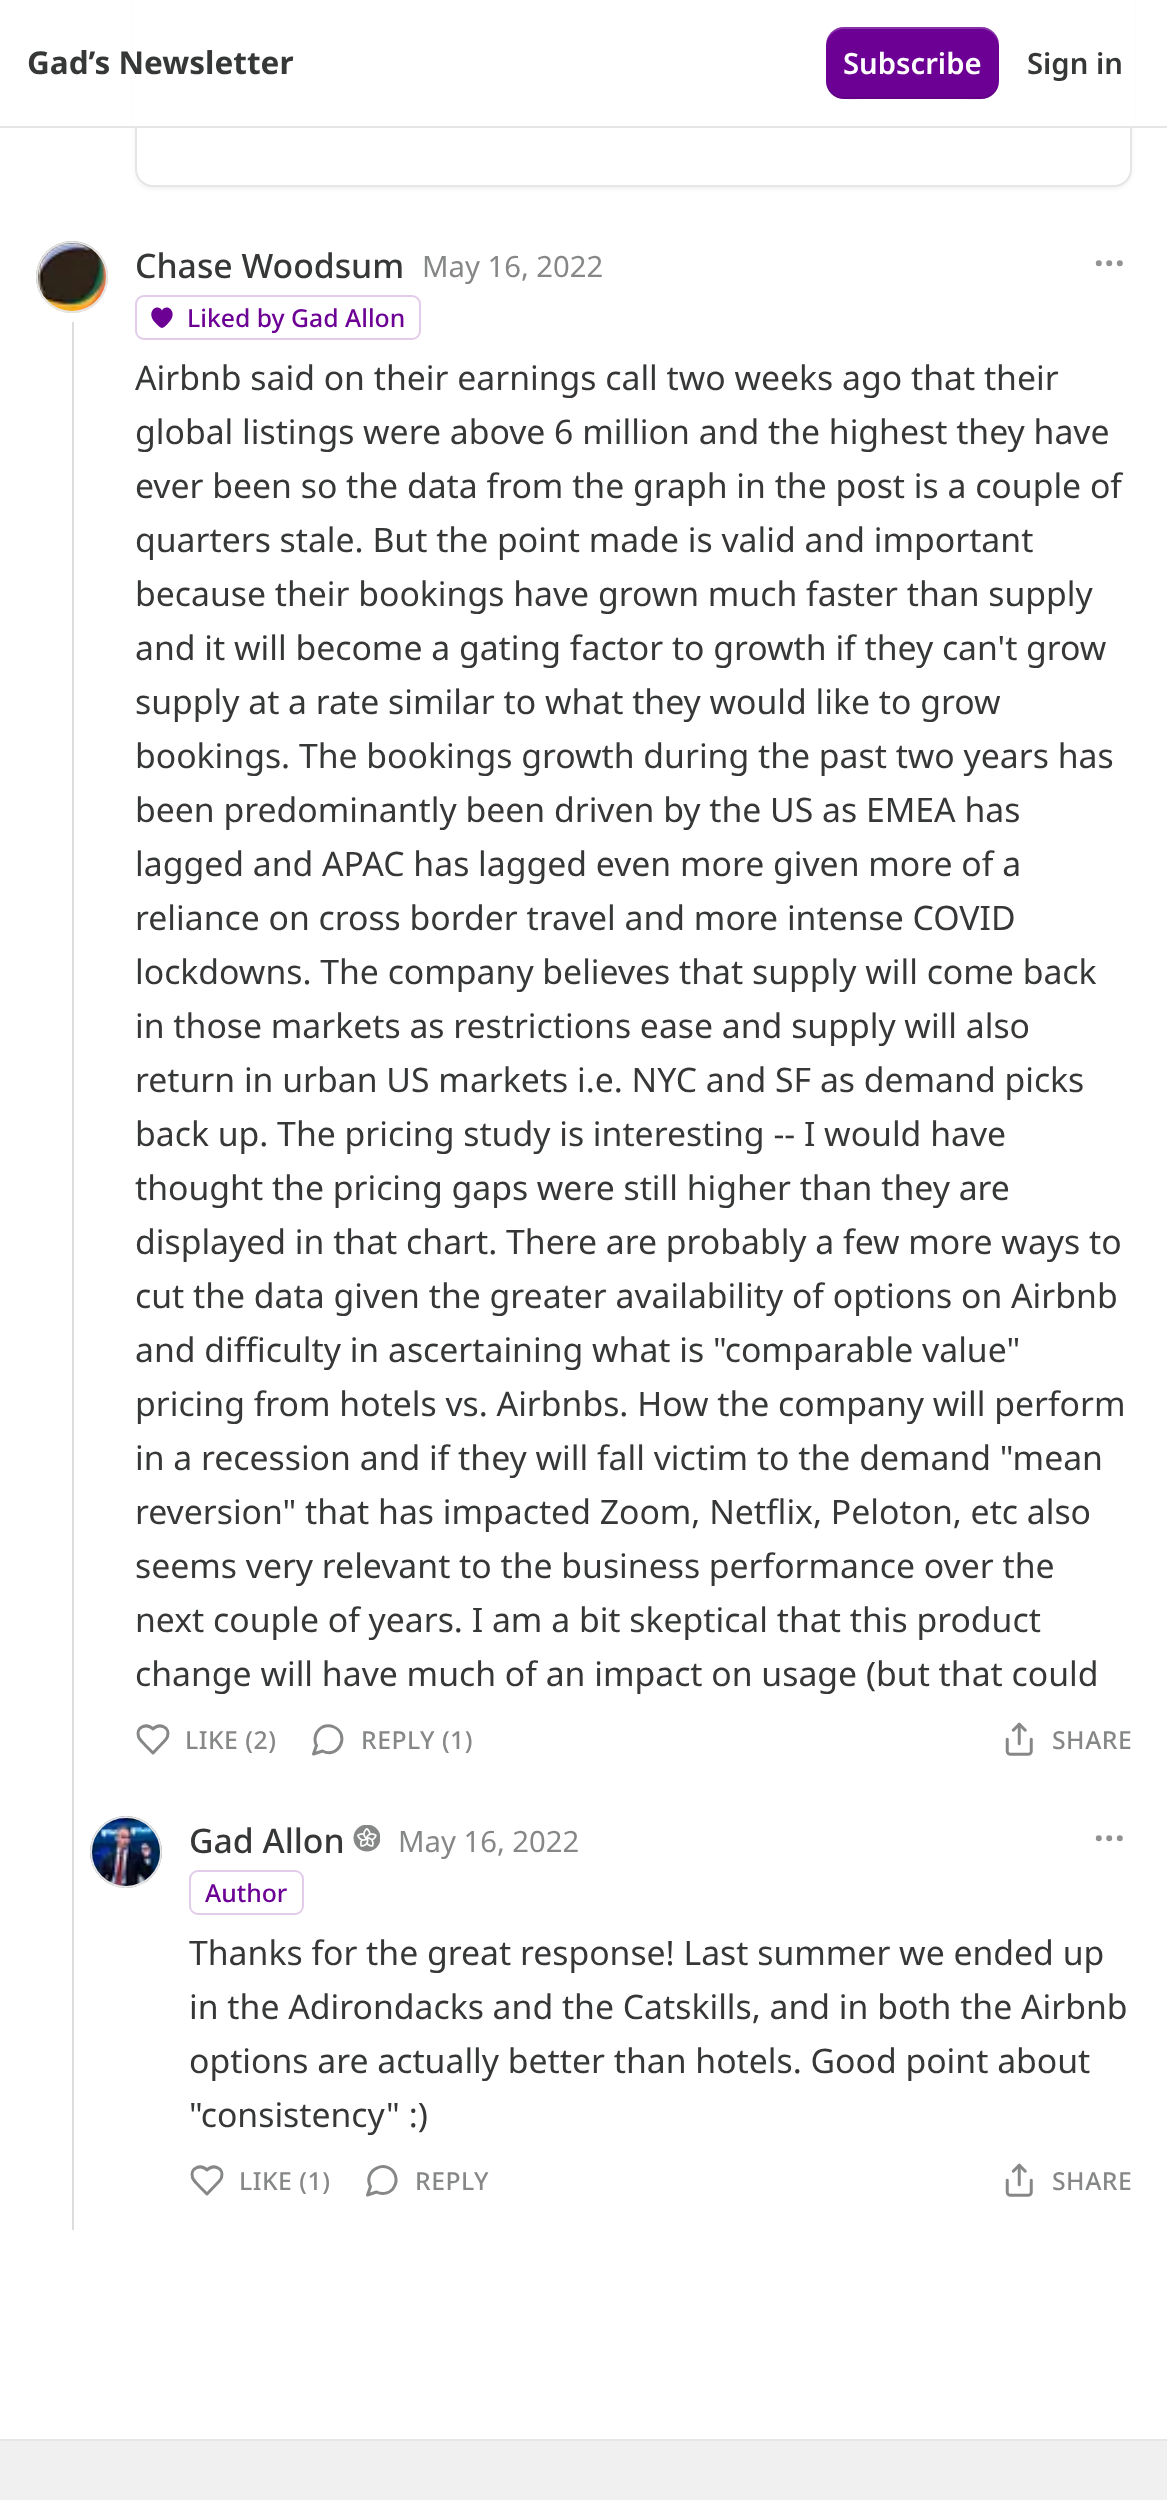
<svg xmlns="http://www.w3.org/2000/svg" width="1167" height="2500" viewBox="0 0 1167 2500">
  <defs>
    <filter id="blur1" x="-50%" y="-200%" width="200%" height="500%"><feGaussianBlur stdDeviation="2"/></filter>
  </defs>
  <rect width="100%" height="100%" fill="#ffffff"/>
  <rect x="135" y="-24" width="997" height="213" rx="18" fill="#000000" fill-opacity="0.05" filter="url(#blur1)"/>
  <rect x="136" y="-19" width="995" height="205" rx="17" fill="#ffffff" stroke="#e6e6e6" stroke-width="2"/>
  <rect x="133" y="0" width="1001" height="126" fill="#ffffff"/>
  <rect x="0" y="126" width="1167" height="2" fill="#e6e6e6"/>
  <text x="27" y="74" font-family="Noto Sans" font-size="31.5" font-weight="bold" fill="#363737">Gad’s Newsletter</text>
  <rect x="826" y="27" width="173" height="72" rx="18" fill="#6c0095"/>
  <path d="M826 79C826 104 849 99 867 99H958C976 99 999 104 999 79C999 89 991 97 981 97H844C834 97 826 89 826 79Z" fill="#000000" fill-opacity="0.1"/>
  <path d="M844 29H981C991 29 999 37 999 47C999 22 976 27 958 27H867C849 27 826 22 826 47C826 37 834 29 844 29Z" fill="#ffffff" fill-opacity="0.2"/>
  <text x="843" y="74" font-family="Noto Sans" font-size="29.25" font-weight="600" fill="#ffffff">Subscribe</text>
  <text x="1027" y="74" font-family="Noto Sans" font-size="29.25" font-weight="600" fill="#363737">Sign in</text>
  <rect x="72" y="322" width="2" height="1908" fill="#dddddd"/>
  <circle cx="72" cy="277" r="35" fill="none" stroke="#e6e6e6" stroke-width="2"/>
  <image x="36" y="241" width="72" height="72" href="img1.png"/>
  <circle cx="72" cy="277" r="35" fill="none" stroke="#e6e6e6" stroke-width="2"/>
  <text x="135" y="278" font-family="Noto Sans" font-size="33.75" font-weight="500" fill="#363737">Chase Woodsum</text>
  <text x="422" y="277" font-family="Noto Sans" font-size="29.25" fill="#868787">May 16, 2022</text>
  <rect x="136" y="296" width="284" height="43" rx="8" fill="none" stroke="#e2ccea" stroke-width="2"/>
  <path d="M162 328C160.5 328 157.5 325 156.5 324C144 312.5 157.5 302.5 162 310.5C166.5 302.5 180 312.5 167.5 324C166.5 325 163.5 328 162 328Z" fill="#6c0095"/>
  <text x="187" y="327" font-family="Noto Sans" font-size="24.75" font-weight="500" fill="#6c0095">Liked by Gad Allon</text>
  <circle cx="1109.2" cy="263.2" r="1.5" fill="none" stroke="#929292" stroke-width="3"/>
  <circle cx="1119.8" cy="263.2" r="1.5" fill="none" stroke="#929292" stroke-width="3"/>
  <circle cx="1098.8" cy="263.2" r="1.5" fill="none" stroke="#929292" stroke-width="3"/>
  <text x="135" y="390" font-family="Noto Sans" font-size="33.75" fill="#363737">Airbnb said on their earnings call two weeks ago that their</text>
  <text x="135" y="444" font-family="Noto Sans" font-size="33.75" fill="#363737">global listings were above 6 million and the highest they have</text>
  <text x="135" y="498" font-family="Noto Sans" font-size="33.75" fill="#363737">ever been so the data from the graph in the post is a couple of</text>
  <text x="135" y="552" font-family="Noto Sans" font-size="33.75" fill="#363737">quarters stale. But the point made is valid and important</text>
  <text x="135" y="606" font-family="Noto Sans" font-size="33.75" fill="#363737">because their bookings have grown much faster than supply</text>
  <text x="135" y="660" font-family="Noto Sans" font-size="33.75" fill="#363737">and it will become a gating factor to growth if they can't grow</text>
  <text x="135" y="714" font-family="Noto Sans" font-size="33.75" fill="#363737">supply at a rate similar to what they would like to grow</text>
  <text x="135" y="768" font-family="Noto Sans" font-size="33.75" fill="#363737">bookings. The bookings growth during the past two years has</text>
  <text x="135" y="822" font-family="Noto Sans" font-size="33.75" fill="#363737">been predominantly been driven by the US as EMEA has</text>
  <text x="135" y="876" font-family="Noto Sans" font-size="33.75" fill="#363737">lagged and APAC has lagged even more given more of a</text>
  <text x="135" y="930" font-family="Noto Sans" font-size="33.75" fill="#363737">reliance on cross border travel and more intense COVID</text>
  <text x="135" y="984" font-family="Noto Sans" font-size="33.75" fill="#363737">lockdowns. The company believes that supply will come back</text>
  <text x="135" y="1038" font-family="Noto Sans" font-size="33.75" fill="#363737">in those markets as restrictions ease and supply will also</text>
  <text x="135" y="1092" font-family="Noto Sans" font-size="33.75" fill="#363737">return in urban US markets i.e. NYC and SF as demand picks</text>
  <text x="135" y="1146" font-family="Noto Sans" font-size="33.75" fill="#363737">back up. The pricing study is interesting -- I would have</text>
  <text x="135" y="1200" font-family="Noto Sans" font-size="33.75" fill="#363737">thought the pricing gaps were still higher than they are</text>
  <text x="135" y="1254" font-family="Noto Sans" font-size="33.75" fill="#363737">displayed in that chart. There are probably a few more ways to</text>
  <text x="135" y="1308" font-family="Noto Sans" font-size="33.75" fill="#363737">cut the data given the greater availability of options on Airbnb</text>
  <text x="135" y="1362" font-family="Noto Sans" font-size="33.75" fill="#363737">and difficulty in ascertaining what is "comparable value"</text>
  <text x="135" y="1416" font-family="Noto Sans" font-size="33.75" fill="#363737">pricing from hotels vs. Airbnbs. How the company will perform</text>
  <text x="135" y="1470" font-family="Noto Sans" font-size="33.75" fill="#363737">in a recession and if they will fall victim to the demand "mean</text>
  <text x="135" y="1524" font-family="Noto Sans" font-size="33.75" fill="#363737">reversion" that has impacted Zoom, Netflix, Peloton, etc also</text>
  <text x="135" y="1578" font-family="Noto Sans" font-size="33.75" fill="#363737">seems very relevant to the business performance over the</text>
  <text x="135" y="1632" font-family="Noto Sans" font-size="33.75" fill="#363737">next couple of years. I am a bit skeptical that this product</text>
  <text x="135" y="1686" font-family="Noto Sans" font-size="33.75" fill="#363737">change will have much of an impact on usage (but that could</text>
  <path d="M163.5 1742C165 1740.5 167 1738.5 167.5 1736.5C170.5 1727.5 159.5 1722.5 153 1729C146.5 1722.5 135.5 1727.5 138.5 1736.5C139.5 1740 143.5 1743 146 1746L153 1753Z" fill="none" stroke="#868787" stroke-width="3" stroke-linecap="round" stroke-linejoin="round"/>
  <text x="185" y="1749" font-family="Noto Sans" font-size="24.75" font-weight="500" letter-spacing="0.5" fill="#868787">LIKE (2)</text>
  <path d="M322.5 1751C338.5 1759.5 350.5 1734.5 334 1727C330.5 1725.5 326 1725.5 322.5 1727C316 1730.5 313 1738.5 316.5 1745.5L313.5 1754Z" fill="none" stroke="#868787" stroke-width="3" stroke-linecap="round" stroke-linejoin="round"/>
  <text x="361" y="1749" font-family="Noto Sans" font-size="24.75" font-weight="500" letter-spacing="0.5" fill="#868787">REPLY (1)</text>
  <image x="1005" y="1722" width="28" height="34" href="img2.png"/>
  <text x="1052" y="1749" font-family="Noto Sans" font-size="24.75" font-weight="500" letter-spacing="0.5" fill="#868787">SHARE</text>
  <circle cx="126" cy="1852" r="35" fill="none" stroke="#e6e6e6" stroke-width="2"/>
  <image x="90" y="1816" width="72" height="72" href="img3.png"/>
  <circle cx="126" cy="1852" r="35" fill="none" stroke="#e6e6e6" stroke-width="2"/>
  <text x="189" y="1853" font-family="Noto Sans" font-size="33.75" font-weight="500" fill="#363737">Gad Allon</text>
  <image x="353" y="1825" width="27" height="27" href="img4.png"/>
  <text x="398" y="1852" font-family="Noto Sans" font-size="29.25" fill="#868787">May 16, 2022</text>
  <rect x="190" y="1871" width="113" height="43" rx="8" fill="none" stroke="#e2ccea" stroke-width="2"/>
  <text x="205" y="1902" font-family="Noto Sans" font-size="24.75" font-weight="500" fill="#6c0095">Author</text>
  <circle cx="1109.2" cy="1838.2" r="1.5" fill="none" stroke="#929292" stroke-width="3"/>
  <circle cx="1119.8" cy="1838.2" r="1.5" fill="none" stroke="#929292" stroke-width="3"/>
  <circle cx="1098.8" cy="1838.2" r="1.5" fill="none" stroke="#929292" stroke-width="3"/>
  <text x="189" y="1965" font-family="Noto Sans" font-size="33.75" fill="#363737">Thanks for the great response! Last summer we ended up</text>
  <text x="189" y="2019" font-family="Noto Sans" font-size="33.75" fill="#363737">in the Adirondacks and the Catskills, and in both the Airbnb</text>
  <text x="189" y="2073" font-family="Noto Sans" font-size="33.75" fill="#363737">options are actually better than hotels. Good point about</text>
  <text x="189" y="2127" font-family="Noto Sans" font-size="33.75" fill="#363737">"consistency" :)</text>
  <path d="M217.5 2183C219 2181.5 221 2179.5 221.5 2177.5C224.5 2168.5 213.5 2163.5 207 2170C200.5 2163.5 189.5 2168.5 192.5 2177.5C193.5 2181 197.5 2184 200 2187L207 2194Z" fill="none" stroke="#868787" stroke-width="3" stroke-linecap="round" stroke-linejoin="round"/>
  <text x="239" y="2190" font-family="Noto Sans" font-size="24.75" font-weight="500" letter-spacing="0.5" fill="#868787">LIKE (1)</text>
  <path d="M376.5 2192C383 2195.5 391.5 2193 394.5 2186C396.5 2182.5 396.5 2178.5 395 2174.5C387.5 2158 362 2170 370.5 2186.5L367.5 2195Z" fill="none" stroke="#868787" stroke-width="3" stroke-linecap="round" stroke-linejoin="round"/>
  <text x="415" y="2190" font-family="Noto Sans" font-size="24.75" font-weight="500" letter-spacing="0.5" fill="#868787">REPLY</text>
  <image x="1005" y="2163" width="28" height="34" href="img2.png"/>
  <text x="1052" y="2190" font-family="Noto Sans" font-size="24.75" font-weight="500" letter-spacing="0.5" fill="#868787">SHARE</text>
  <rect x="0" y="2441" width="1167" height="59" fill="#f0f0f0"/>
  <rect x="0" y="2439" width="1167" height="2" fill="#e6e6e6"/>
</svg>
